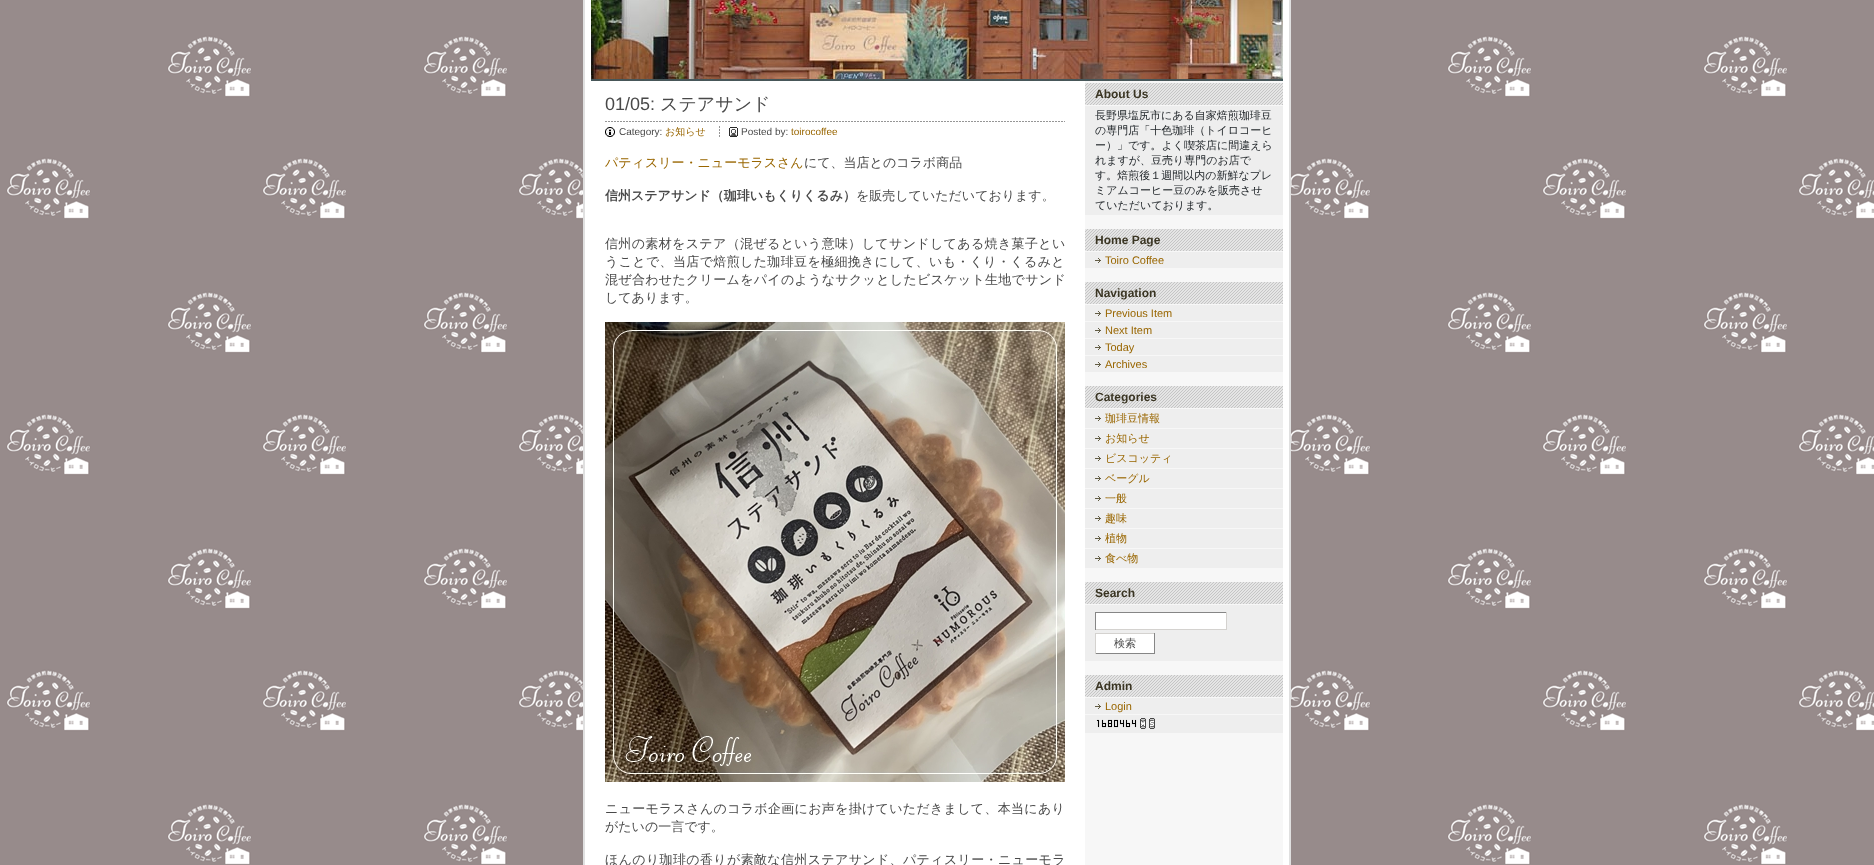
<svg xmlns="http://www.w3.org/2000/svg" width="1874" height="865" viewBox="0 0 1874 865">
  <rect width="100%" height="100%" fill="#ffffff"/>
  <image x="0" y="0" width="1874" height="865" href="img1.png"/>
  <rect x="585" y="0" width="704" height="865" fill="#ffffff"/>
  <image x="591" y="79" width="692" height="2" href="img2.png"/>
  <image x="591" y="0" width="692" height="79" href="img3.png"/>
  <rect x="1289" y="0" width="2" height="865" fill="#e0e0e0"/>
  <rect x="583" y="0" width="2" height="865" fill="#e0e0e0"/>
  <rect x="1085" y="81" width="198" height="784" fill="#f7f7f7"/>
  <image x="605" y="121" width="460" height="1" href="img4.png"/>
  <text x="605" y="110" font-family="Liberation Sans" font-size="18" fill="#494949">01/05:</text>
  <text x="660" y="110" font-family="WenQuanYi Zen Hei" font-size="18" font-weight="500" fill="#494949">ステアサンド</text>
  <image x="605" y="127" width="10" height="10" href="img5.png"/>
  <text x="619" y="135" font-family="Liberation Sans" font-size="10" fill="#494949">Category:</text>
  <text x="665" y="135" font-family="WenQuanYi Zen Hei" font-size="10" font-weight="500" fill="#996600">お知らせ</text>
  <image x="719" y="126" width="1" height="11" href="img6.png"/>
  <image x="729" y="127" width="9" height="10" href="img7.png"/>
  <text x="741" y="135" font-family="Liberation Sans" font-size="10" fill="#494949">Posted by:</text>
  <text x="791" y="135" font-family="Liberation Sans" font-size="10" fill="#996600">toirocoffee</text>
  <text x="605" y="167" font-family="WenQuanYi Zen Hei" font-size="13" font-weight="500" fill="#996600">パティスリー・ニューモラスさん</text>
  <text x="804" y="167" font-family="WenQuanYi Zen Hei" font-size="13" font-weight="500" fill="#494949">にて、当店とのコラボ商品</text>
  <text x="605" y="200" font-family="WenQuanYi Zen Hei" font-size="13" font-weight="bold" fill="#494949">信州ステアサンド（珈琲いもくりくるみ）</text>
  <text x="856" y="200" font-family="WenQuanYi Zen Hei" font-size="13" font-weight="500" fill="#494949">を販売していただいております。</text>
  <text x="605" y="248" font-family="WenQuanYi Zen Hei" font-size="13" font-weight="500" letter-spacing="0.35" fill="#494949">信州の素材をステア（混ぜるという意味）してサンドしてある焼き菓子とい</text>
  <text x="605" y="266" font-family="WenQuanYi Zen Hei" font-size="13" font-weight="500" letter-spacing="0.35" fill="#494949">うことで、当店で焙煎した珈琲豆を極細挽きにして、いも・くり・くるみと</text>
  <text x="605" y="284" font-family="WenQuanYi Zen Hei" font-size="13" font-weight="500" letter-spacing="0.3" fill="#494949">混ぜ合わせたクリームをパイのようなサクッとしたビスケット生地でサンド</text>
  <text x="605" y="302" font-family="WenQuanYi Zen Hei" font-size="13" font-weight="500" fill="#494949">してあります。</text>
  <image x="605" y="322" width="460" height="460" href="img8.png"/>
  <text x="605" y="813" font-family="WenQuanYi Zen Hei" font-size="13" font-weight="500" letter-spacing="0.3" fill="#494949">ニューモラスさんのコラボ企画にお声を掛けていただきまして、本当にあり</text>
  <text x="605" y="831" font-family="WenQuanYi Zen Hei" font-size="13" font-weight="500" fill="#494949">がたいの一言です。</text>
  <text x="605" y="864" font-family="WenQuanYi Zen Hei" font-size="13" font-weight="500" letter-spacing="0.35" fill="#494949">ほんのり珈琲の香りが素敵な信州ステアサンド、パティスリー・ニューモラ</text>
  <rect x="1085" y="83" width="198" height="22" fill="#e5e5e5"/>
  <image x="1085" y="83" width="198" height="22" href="img9.png"/>
  <text x="1095" y="98" font-family="Liberation Sans" font-size="12" font-weight="bold" fill="#3a3523">About Us</text>
  <rect x="1085" y="106" width="198" height="109" fill="#eeeeee"/>
  <text x="1095" y="119" font-family="WenQuanYi Zen Hei" font-size="11" font-weight="500" fill="#21262a">長野県塩尻市にある自家焙煎珈琲豆</text>
  <text x="1095" y="134" font-family="WenQuanYi Zen Hei" font-size="11" font-weight="500" fill="#21262a">の専門店「十色珈琲（トイロコーヒ</text>
  <text x="1095" y="149" font-family="WenQuanYi Zen Hei" font-size="11" font-weight="500" fill="#21262a">ー）」です。よく喫茶店に間違えら</text>
  <text x="1095" y="164" font-family="WenQuanYi Zen Hei" font-size="11" font-weight="500" fill="#21262a">れますが、豆売り専門のお店で</text>
  <text x="1095" y="179" font-family="WenQuanYi Zen Hei" font-size="11" font-weight="500" fill="#21262a">す。焙煎後１週間以内の新鮮なプレ</text>
  <text x="1095" y="194" font-family="WenQuanYi Zen Hei" font-size="11" font-weight="500" fill="#21262a">ミアムコーヒー豆のみを販売させ</text>
  <text x="1095" y="209" font-family="WenQuanYi Zen Hei" font-size="11" font-weight="500" fill="#21262a">ていただいております。</text>
  <rect x="1085" y="229" width="198" height="22" fill="#e5e5e5"/>
  <image x="1085" y="229" width="198" height="22" href="img9.png"/>
  <text x="1095" y="244" font-family="Liberation Sans" font-size="12" font-weight="bold" fill="#3a3523">Home Page</text>
  <rect x="1085" y="252" width="198" height="16" fill="#eeeeee"/>
  <image x="1095" y="258" width="6" height="5" href="img10.png"/>
  <text x="1105" y="264" font-family="Liberation Sans" font-size="11" fill="#996600">Toiro Coffee</text>
  <rect x="1085" y="282" width="198" height="22" fill="#e5e5e5"/>
  <image x="1085" y="282" width="198" height="22" href="img9.png"/>
  <text x="1095" y="297" font-family="Liberation Sans" font-size="12" font-weight="bold" fill="#3a3523">Navigation</text>
  <rect x="1085" y="305" width="198" height="16" fill="#eeeeee"/>
  <image x="1095" y="311" width="6" height="5" href="img10.png"/>
  <text x="1105" y="317" font-family="Liberation Sans" font-size="11" fill="#996600">Previous Item</text>
  <rect x="1085" y="322" width="198" height="16" fill="#eeeeee"/>
  <image x="1095" y="328" width="6" height="5" href="img10.png"/>
  <text x="1105" y="334" font-family="Liberation Sans" font-size="11" fill="#996600">Next Item</text>
  <rect x="1085" y="339" width="198" height="16" fill="#eeeeee"/>
  <image x="1095" y="345" width="6" height="5" href="img10.png"/>
  <text x="1105" y="351" font-family="Liberation Sans" font-size="11" fill="#996600">Today</text>
  <rect x="1085" y="356" width="198" height="16" fill="#eeeeee"/>
  <image x="1095" y="362" width="6" height="5" href="img10.png"/>
  <text x="1105" y="368" font-family="Liberation Sans" font-size="11" fill="#996600">Archives</text>
  <rect x="1085" y="386" width="198" height="22" fill="#e5e5e5"/>
  <image x="1085" y="386" width="198" height="22" href="img9.png"/>
  <text x="1095" y="401" font-family="Liberation Sans" font-size="12" font-weight="bold" fill="#3a3523">Categories</text>
  <rect x="1085" y="409" width="198" height="19" fill="#eeeeee"/>
  <image x="1095" y="416" width="6" height="5" href="img10.png"/>
  <text x="1105" y="422" font-family="WenQuanYi Zen Hei" font-size="11" font-weight="500" fill="#996600">珈琲豆情報</text>
  <rect x="1085" y="429" width="198" height="19" fill="#eeeeee"/>
  <image x="1095" y="436" width="6" height="5" href="img10.png"/>
  <text x="1105" y="442" font-family="WenQuanYi Zen Hei" font-size="11" font-weight="500" fill="#996600">お知らせ</text>
  <rect x="1085" y="449" width="198" height="19" fill="#eeeeee"/>
  <image x="1095" y="456" width="6" height="5" href="img10.png"/>
  <text x="1105" y="462" font-family="WenQuanYi Zen Hei" font-size="11" font-weight="500" fill="#996600">ビスコッティ</text>
  <rect x="1085" y="469" width="198" height="19" fill="#eeeeee"/>
  <image x="1095" y="476" width="6" height="5" href="img10.png"/>
  <text x="1105" y="482" font-family="WenQuanYi Zen Hei" font-size="11" font-weight="500" fill="#996600">ベーグル</text>
  <rect x="1085" y="489" width="198" height="19" fill="#eeeeee"/>
  <image x="1095" y="496" width="6" height="5" href="img10.png"/>
  <text x="1105" y="502" font-family="WenQuanYi Zen Hei" font-size="11" font-weight="500" fill="#996600">一般</text>
  <rect x="1085" y="509" width="198" height="19" fill="#eeeeee"/>
  <image x="1095" y="516" width="6" height="5" href="img10.png"/>
  <text x="1105" y="522" font-family="WenQuanYi Zen Hei" font-size="11" font-weight="500" fill="#996600">趣味</text>
  <rect x="1085" y="529" width="198" height="19" fill="#eeeeee"/>
  <image x="1095" y="536" width="6" height="5" href="img10.png"/>
  <text x="1105" y="542" font-family="WenQuanYi Zen Hei" font-size="11" font-weight="500" fill="#996600">植物</text>
  <rect x="1085" y="549" width="198" height="19" fill="#eeeeee"/>
  <image x="1095" y="556" width="6" height="5" href="img10.png"/>
  <text x="1105" y="562" font-family="WenQuanYi Zen Hei" font-size="11" font-weight="500" fill="#996600">食べ物</text>
  <rect x="1085" y="582" width="198" height="22" fill="#e5e5e5"/>
  <image x="1085" y="582" width="198" height="22" href="img9.png"/>
  <text x="1095" y="597" font-family="Liberation Sans" font-size="12" font-weight="bold" fill="#3a3523">Search</text>
  <rect x="1085" y="605" width="198" height="56" fill="#eeeeee"/>
  <rect x="1096" y="613" width="130" height="16" fill="#ffffff"/>
  <rect x="1095" y="612" width="132" height="1" fill="#868686"/>
  <rect x="1226" y="612" width="1" height="18" fill="#d4d2cf"/>
  <rect x="1095" y="629" width="132" height="1" fill="#d4d2cf"/>
  <rect x="1095" y="612" width="1" height="18" fill="#868686"/>
  <rect x="1096" y="634" width="58" height="19" fill="#ffffff"/>
  <rect x="1095" y="633" width="60" height="1" fill="#d4d2cf"/>
  <rect x="1154" y="633" width="1" height="21" fill="#868686"/>
  <rect x="1095" y="653" width="60" height="1" fill="#868686"/>
  <rect x="1095" y="633" width="1" height="21" fill="#d4d2cf"/>
  <text x="1114" y="647" font-family="WenQuanYi Zen Hei" font-size="11" font-weight="500" fill="#494949">検索</text>
  <rect x="1085" y="675" width="198" height="22" fill="#e5e5e5"/>
  <image x="1085" y="675" width="198" height="22" href="img9.png"/>
  <text x="1095" y="690" font-family="Liberation Sans" font-size="12" font-weight="bold" fill="#3a3523">Admin</text>
  <rect x="1085" y="698" width="198" height="16" fill="#eeeeee"/>
  <image x="1095" y="704" width="6" height="5" href="img10.png"/>
  <text x="1105" y="710" font-family="Liberation Sans" font-size="11" fill="#996600">Login</text>
  <rect x="1085" y="715" width="198" height="18" fill="#eeeeee"/>
  <image x="1096" y="719" width="4" height="9" href="img11.png"/>
  <image x="1101" y="719" width="6" height="9" href="img12.png"/>
  <image x="1107" y="719" width="6" height="9" href="img13.png"/>
  <image x="1113" y="719" width="6" height="9" href="img14.png"/>
  <image x="1119" y="719" width="6" height="9" href="img15.png"/>
  <image x="1125" y="719" width="6" height="9" href="img12.png"/>
  <image x="1131" y="719" width="6" height="9" href="img15.png"/>
  <image x="1140" y="718" width="6" height="11" href="img16.png"/>
  <image x="1149" y="718" width="6" height="11" href="img17.png"/>
</svg>
